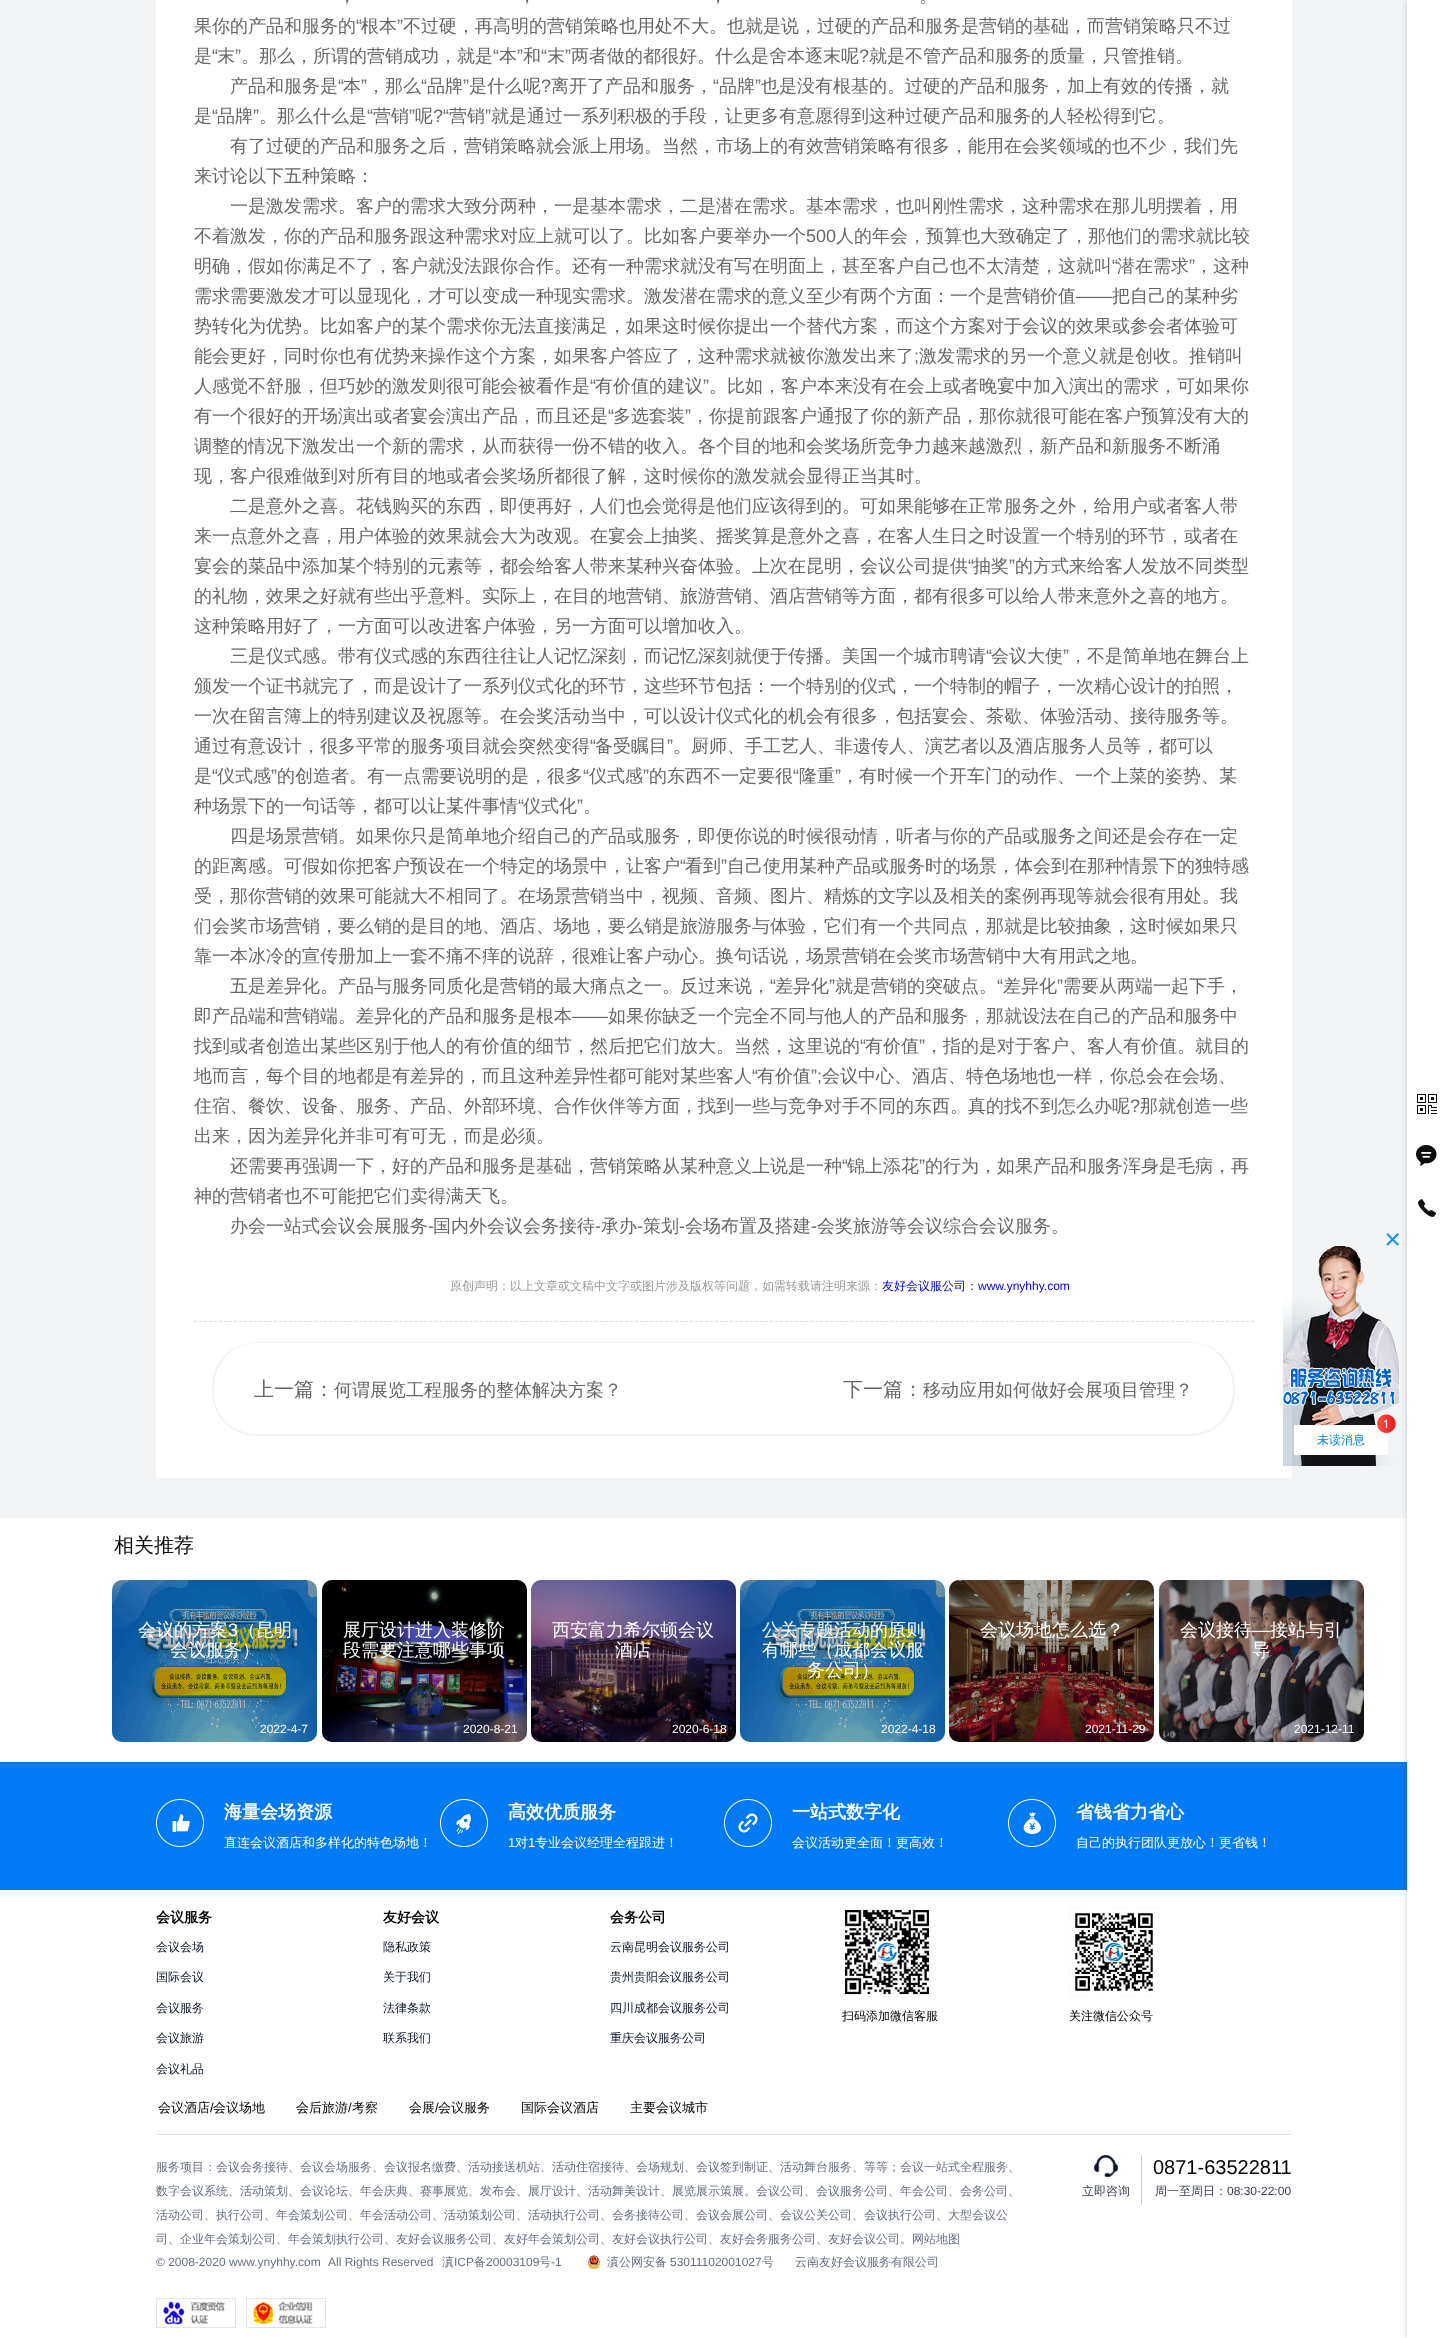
<svg xmlns="http://www.w3.org/2000/svg" width="1447" height="2338" viewBox="0 0 1447 2338">
  <defs>
    <filter id="blur1" x="-50%" y="-200%" width="200%" height="500%"><feGaussianBlur stdDeviation="2.5"/></filter>
  </defs>
  <rect width="100%" height="100%" fill="#ffffff"/>
  <rect x="0" y="0" width="1407" height="1518" fill="#f2f4f5"/>
  <rect x="156" y="0" width="1136" height="1478" fill="#ffffff"/>
  <text x="338" y="2" font-family="WenQuanYi Zen Hei" font-size="18" font-weight="500" fill="#666666">，</text>
  <text x="518" y="2" font-family="WenQuanYi Zen Hei" font-size="18" font-weight="500" fill="#666666">，</text>
  <text x="709" y="2" font-family="WenQuanYi Zen Hei" font-size="18" font-weight="500" fill="#666666">，</text>
  <text x="919" y="2" font-family="WenQuanYi Zen Hei" font-size="18" font-weight="500" fill="#666666">。</text>
  <text x="194" y="32" font-family="WenQuanYi Zen Hei" font-size="18" font-weight="500" fill="#666666">果你的产品和服务的</text>
  <text x="356" y="32" font-family="Liberation Sans" font-size="18" fill="#666666">“</text>
  <text x="361" y="32" font-family="WenQuanYi Zen Hei" font-size="18" font-weight="500" fill="#666666">根本</text>
  <text x="397" y="32" font-family="Liberation Sans" font-size="18" fill="#666666">”</text>
  <text x="403" y="32" font-family="WenQuanYi Zen Hei" font-size="18" font-weight="500" fill="#666666">不过硬，再高明的营销策略也用处不大。也就是说，过硬的产品和服务是营销的基础，而营销策略只不过</text>
  <text x="194" y="62" font-family="WenQuanYi Zen Hei" font-size="18" font-weight="500" fill="#666666">是</text>
  <text x="212" y="62" font-family="Liberation Sans" font-size="18" fill="#666666">“</text>
  <text x="217" y="62" font-family="WenQuanYi Zen Hei" font-size="18" font-weight="500" fill="#666666">末</text>
  <text x="235" y="62" font-family="Liberation Sans" font-size="18" fill="#666666">”</text>
  <text x="241" y="62" font-family="WenQuanYi Zen Hei" font-size="18" font-weight="500" fill="#666666">。那么，所谓的营销成功，就是</text>
  <text x="493" y="62" font-family="Liberation Sans" font-size="18" fill="#666666">“</text>
  <text x="499" y="62" font-family="WenQuanYi Zen Hei" font-size="18" font-weight="500" fill="#666666">本</text>
  <text x="517" y="62" font-family="Liberation Sans" font-size="18" fill="#666666">”</text>
  <text x="523" y="62" font-family="WenQuanYi Zen Hei" font-size="18" font-weight="500" fill="#666666">和</text>
  <text x="541" y="62" font-family="Liberation Sans" font-size="18" fill="#666666">“</text>
  <text x="547" y="62" font-family="WenQuanYi Zen Hei" font-size="18" font-weight="500" fill="#666666">末</text>
  <text x="565" y="62" font-family="Liberation Sans" font-size="18" fill="#666666">”</text>
  <text x="571" y="62" font-family="WenQuanYi Zen Hei" font-size="18" font-weight="500" fill="#666666">两者做的都很好。什么是舍本逐末呢</text>
  <text x="859" y="62" font-family="Liberation Sans" font-size="18" fill="#666666">?</text>
  <text x="869" y="62" font-family="WenQuanYi Zen Hei" font-size="18" font-weight="500" fill="#666666">就是不管产品和服务的质量，只管推销。</text>
  <text x="230" y="92" font-family="WenQuanYi Zen Hei" font-size="18" font-weight="500" fill="#666666">产品和服务是</text>
  <text x="338" y="92" font-family="Liberation Sans" font-size="18" fill="#666666">“</text>
  <text x="343" y="92" font-family="WenQuanYi Zen Hei" font-size="18" font-weight="500" fill="#666666">本</text>
  <text x="361" y="92" font-family="Liberation Sans" font-size="18" fill="#666666">”</text>
  <text x="367" y="92" font-family="WenQuanYi Zen Hei" font-size="18" font-weight="500" fill="#666666">，那么</text>
  <text x="421" y="92" font-family="Liberation Sans" font-size="18" fill="#666666">“</text>
  <text x="427" y="92" font-family="WenQuanYi Zen Hei" font-size="18" font-weight="500" fill="#666666">品牌</text>
  <text x="463" y="92" font-family="Liberation Sans" font-size="18" fill="#666666">”</text>
  <text x="469" y="92" font-family="WenQuanYi Zen Hei" font-size="18" font-weight="500" fill="#666666">是什么呢</text>
  <text x="541" y="92" font-family="Liberation Sans" font-size="18" fill="#666666">?</text>
  <text x="551" y="92" font-family="WenQuanYi Zen Hei" font-size="18" font-weight="500" fill="#666666">离开了产品和服务，</text>
  <text x="713" y="92" font-family="Liberation Sans" font-size="18" fill="#666666">“</text>
  <text x="719" y="92" font-family="WenQuanYi Zen Hei" font-size="18" font-weight="500" fill="#666666">品牌</text>
  <text x="755" y="92" font-family="Liberation Sans" font-size="18" fill="#666666">”</text>
  <text x="761" y="92" font-family="WenQuanYi Zen Hei" font-size="18" font-weight="500" fill="#666666">也是没有根基的。过硬的产品和服务，加上有效的传播，就</text>
  <text x="194" y="122" font-family="WenQuanYi Zen Hei" font-size="18" font-weight="500" fill="#666666">是</text>
  <text x="212" y="122" font-family="Liberation Sans" font-size="18" fill="#666666">“</text>
  <text x="217" y="122" font-family="WenQuanYi Zen Hei" font-size="18" font-weight="500" fill="#666666">品牌</text>
  <text x="253" y="122" font-family="Liberation Sans" font-size="18" fill="#666666">”</text>
  <text x="259" y="122" font-family="WenQuanYi Zen Hei" font-size="18" font-weight="500" fill="#666666">。那么什么是</text>
  <text x="367" y="122" font-family="Liberation Sans" font-size="18" fill="#666666">“</text>
  <text x="373" y="122" font-family="WenQuanYi Zen Hei" font-size="18" font-weight="500" fill="#666666">营销</text>
  <text x="409" y="122" font-family="Liberation Sans" font-size="18" fill="#666666">”</text>
  <text x="415" y="122" font-family="WenQuanYi Zen Hei" font-size="18" font-weight="500" fill="#666666">呢</text>
  <text x="433" y="122" font-family="Liberation Sans" font-size="18" fill="#666666">?“</text>
  <text x="449" y="122" font-family="WenQuanYi Zen Hei" font-size="18" font-weight="500" fill="#666666">营销</text>
  <text x="485" y="122" font-family="Liberation Sans" font-size="18" fill="#666666">”</text>
  <text x="491" y="122" font-family="WenQuanYi Zen Hei" font-size="18" font-weight="500" fill="#666666">就是通过一系列积极的手段，让更多有意愿得到这种过硬产品和服务的人轻松得到它。</text>
  <text x="230" y="152" font-family="WenQuanYi Zen Hei" font-size="18" font-weight="500" fill="#666666">有了过硬的产品和服务之后，营销策略就会派上用场。当然，市场上的有效营销策略有很多，能用在会奖领域的也不少，我们先</text>
  <text x="194" y="182" font-family="WenQuanYi Zen Hei" font-size="18" font-weight="500" fill="#666666">来讨论以下五种策略：</text>
  <text x="230" y="212" font-family="WenQuanYi Zen Hei" font-size="18" font-weight="500" fill="#666666">一是激发需求。客户的需求大致分两种，一是基本需求，二是潜在需求。基本需求，也叫刚性需求，这种需求在那儿明摆着，用</text>
  <text x="194" y="242" font-family="WenQuanYi Zen Hei" font-size="18" font-weight="500" fill="#666666">不着激发，你的产品和服务跟这种需求对应上就可以了。比如客户要举办一个</text>
  <text x="806" y="242" font-family="Liberation Sans" font-size="18" fill="#666666">500</text>
  <text x="836" y="242" font-family="WenQuanYi Zen Hei" font-size="18" font-weight="500" fill="#666666">人的年会，预算也大致确定了，那他们的需求就比较</text>
  <text x="194" y="272" font-family="WenQuanYi Zen Hei" font-size="18" font-weight="500" fill="#666666">明确，假如你满足不了，客户就没法跟你合作。还有一种需求就没有写在明面上，甚至客户自己也不太清楚，这就叫</text>
  <text x="1112" y="272" font-family="Liberation Sans" font-size="18" fill="#666666">“</text>
  <text x="1117" y="272" font-family="WenQuanYi Zen Hei" font-size="18" font-weight="500" fill="#666666">潜在需求</text>
  <text x="1189" y="272" font-family="Liberation Sans" font-size="18" fill="#666666">”</text>
  <text x="1195" y="272" font-family="WenQuanYi Zen Hei" font-size="18" font-weight="500" fill="#666666">，这种</text>
  <text x="194" y="302" font-family="WenQuanYi Zen Hei" font-size="18" font-weight="500" fill="#666666">需求需要激发才可以显现化，才可以变成一种现实需求。激发潜在需求的意义至少有两个方面：一个是营销价值</text>
  <text x="1076" y="302" font-family="Liberation Sans" font-size="18" fill="#666666">——</text>
  <text x="1112" y="302" font-family="WenQuanYi Zen Hei" font-size="18" font-weight="500" fill="#666666">把自己的某种劣</text>
  <text x="194" y="332" font-family="WenQuanYi Zen Hei" font-size="18" font-weight="500" fill="#666666">势转化为优势。比如客户的某个需求你无法直接满足，如果这时候你提出一个替代方案，而这个方案对于会议的效果或参会者体验可</text>
  <text x="194" y="362" font-family="WenQuanYi Zen Hei" font-size="18" font-weight="500" fill="#666666">能会更好，同时你也有优势来操作这个方案，如果客户答应了，这种需求就被你激发出来了</text>
  <text x="914" y="362" font-family="Liberation Sans" font-size="18" fill="#666666">;</text>
  <text x="919" y="362" font-family="WenQuanYi Zen Hei" font-size="18" font-weight="500" fill="#666666">激发需求的另一个意义就是创收。推销叫</text>
  <text x="194" y="392" font-family="WenQuanYi Zen Hei" font-size="18" font-weight="500" fill="#666666">人感觉不舒服，但巧妙的激发则很可能会被看作是</text>
  <text x="590" y="392" font-family="Liberation Sans" font-size="18" fill="#666666">“</text>
  <text x="595" y="392" font-family="WenQuanYi Zen Hei" font-size="18" font-weight="500" fill="#666666">有价值的建议</text>
  <text x="703" y="392" font-family="Liberation Sans" font-size="18" fill="#666666">”</text>
  <text x="709" y="392" font-family="WenQuanYi Zen Hei" font-size="18" font-weight="500" fill="#666666">。比如，客户本来没有在会上或者晚宴中加入演出的需求，可如果你</text>
  <text x="194" y="422" font-family="WenQuanYi Zen Hei" font-size="18" font-weight="500" fill="#666666">有一个很好的开场演出或者宴会演出产品，而且还是</text>
  <text x="608" y="422" font-family="Liberation Sans" font-size="18" fill="#666666">“</text>
  <text x="613" y="422" font-family="WenQuanYi Zen Hei" font-size="18" font-weight="500" fill="#666666">多选套装</text>
  <text x="685" y="422" font-family="Liberation Sans" font-size="18" fill="#666666">”</text>
  <text x="691" y="422" font-family="WenQuanYi Zen Hei" font-size="18" font-weight="500" fill="#666666">，你提前跟客户通报了你的新产品，那你就很可能在客户预算没有大的</text>
  <text x="194" y="452" font-family="WenQuanYi Zen Hei" font-size="18" font-weight="500" fill="#666666">调整的情况下激发出一个新的需求，从而获得一份不错的收入。各个目的地和会奖场所竞争力越来越激烈，新产品和新服务不断涌</text>
  <text x="194" y="482" font-family="WenQuanYi Zen Hei" font-size="18" font-weight="500" fill="#666666">现，客户很难做到对所有目的地或者会奖场所都很了解，这时候你的激发就会显得正当其时。</text>
  <text x="230" y="512" font-family="WenQuanYi Zen Hei" font-size="18" font-weight="500" fill="#666666">二是意外之喜。花钱购买的东西，即便再好，人们也会觉得是他们应该得到的。可如果能够在正常服务之外，给用户或者客人带</text>
  <text x="194" y="542" font-family="WenQuanYi Zen Hei" font-size="18" font-weight="500" fill="#666666">来一点意外之喜，用户体验的效果就会大为改观。在宴会上抽奖、摇奖算是意外之喜，在客人生日之时设置一个特别的环节，或者在</text>
  <text x="194" y="572" font-family="WenQuanYi Zen Hei" font-size="18" font-weight="500" fill="#666666">宴会的菜品中添加某个特别的元素等，都会给客人带来某种兴奋体验。上次在昆明，会议公司提供</text>
  <text x="968" y="572" font-family="Liberation Sans" font-size="18" fill="#666666">“</text>
  <text x="973" y="572" font-family="WenQuanYi Zen Hei" font-size="18" font-weight="500" fill="#666666">抽奖</text>
  <text x="1009" y="572" font-family="Liberation Sans" font-size="18" fill="#666666">”</text>
  <text x="1015" y="572" font-family="WenQuanYi Zen Hei" font-size="18" font-weight="500" fill="#666666">的方式来给客人发放不同类型</text>
  <text x="194" y="602" font-family="WenQuanYi Zen Hei" font-size="18" font-weight="500" fill="#666666">的礼物，效果之好就有些出乎意料。实际上，在目的地营销、旅游营销、酒店营销等方面，都有很多可以给人带来意外之喜的地方。</text>
  <text x="194" y="632" font-family="WenQuanYi Zen Hei" font-size="18" font-weight="500" fill="#666666">这种策略用好了，一方面可以改进客户体验，另一方面可以增加收入。</text>
  <text x="230" y="662" font-family="WenQuanYi Zen Hei" font-size="18" font-weight="500" fill="#666666">三是仪式感。带有仪式感的东西往往让人记忆深刻，而记忆深刻就便于传播。美国一个城市聘请</text>
  <text x="986" y="662" font-family="Liberation Sans" font-size="18" fill="#666666">“</text>
  <text x="991" y="662" font-family="WenQuanYi Zen Hei" font-size="18" font-weight="500" fill="#666666">会议大使</text>
  <text x="1063" y="662" font-family="Liberation Sans" font-size="18" fill="#666666">”</text>
  <text x="1069" y="662" font-family="WenQuanYi Zen Hei" font-size="18" font-weight="500" fill="#666666">，不是简单地在舞台上</text>
  <text x="194" y="692" font-family="WenQuanYi Zen Hei" font-size="18" font-weight="500" fill="#666666">颁发一个证书就完了，而是设计了一系列仪式化的环节，这些环节包括：一个特别的仪式，一个特制的帽子，一次精心设计的拍照，</text>
  <text x="194" y="722" font-family="WenQuanYi Zen Hei" font-size="18" font-weight="500" fill="#666666">一次在留言簿上的特别建议及祝愿等。在会奖活动当中，可以设计仪式化的机会有很多，包括宴会、茶歇、体验活动、接待服务等。</text>
  <text x="194" y="752" font-family="WenQuanYi Zen Hei" font-size="18" font-weight="500" fill="#666666">通过有意设计，很多平常的服务项目就会突然变得</text>
  <text x="590" y="752" font-family="Liberation Sans" font-size="18" fill="#666666">“</text>
  <text x="595" y="752" font-family="WenQuanYi Zen Hei" font-size="18" font-weight="500" fill="#666666">备受瞩目</text>
  <text x="667" y="752" font-family="Liberation Sans" font-size="18" fill="#666666">”</text>
  <text x="673" y="752" font-family="WenQuanYi Zen Hei" font-size="18" font-weight="500" fill="#666666">。厨师、手工艺人、非遗传人、演艺者以及酒店服务人员等，都可以</text>
  <text x="194" y="782" font-family="WenQuanYi Zen Hei" font-size="18" font-weight="500" fill="#666666">是</text>
  <text x="212" y="782" font-family="Liberation Sans" font-size="18" fill="#666666">“</text>
  <text x="217" y="782" font-family="WenQuanYi Zen Hei" font-size="18" font-weight="500" fill="#666666">仪式感</text>
  <text x="271" y="782" font-family="Liberation Sans" font-size="18" fill="#666666">”</text>
  <text x="277" y="782" font-family="WenQuanYi Zen Hei" font-size="18" font-weight="500" fill="#666666">的创造者。有一点需要说明的是，很多</text>
  <text x="583" y="782" font-family="Liberation Sans" font-size="18" fill="#666666">“</text>
  <text x="589" y="782" font-family="WenQuanYi Zen Hei" font-size="18" font-weight="500" fill="#666666">仪式感</text>
  <text x="643" y="782" font-family="Liberation Sans" font-size="18" fill="#666666">”</text>
  <text x="649" y="782" font-family="WenQuanYi Zen Hei" font-size="18" font-weight="500" fill="#666666">的东西不一定要很</text>
  <text x="793" y="782" font-family="Liberation Sans" font-size="18" fill="#666666">“</text>
  <text x="799" y="782" font-family="WenQuanYi Zen Hei" font-size="18" font-weight="500" fill="#666666">隆重</text>
  <text x="835" y="782" font-family="Liberation Sans" font-size="18" fill="#666666">”</text>
  <text x="841" y="782" font-family="WenQuanYi Zen Hei" font-size="18" font-weight="500" fill="#666666">，有时候一个开车门的动作、一个上菜的姿势、某</text>
  <text x="194" y="812" font-family="WenQuanYi Zen Hei" font-size="18" font-weight="500" fill="#666666">种场景下的一句话等，都可以让某件事情</text>
  <text x="518" y="812" font-family="Liberation Sans" font-size="18" fill="#666666">“</text>
  <text x="523" y="812" font-family="WenQuanYi Zen Hei" font-size="18" font-weight="500" fill="#666666">仪式化</text>
  <text x="577" y="812" font-family="Liberation Sans" font-size="18" fill="#666666">”</text>
  <text x="583" y="812" font-family="WenQuanYi Zen Hei" font-size="18" font-weight="500" fill="#666666">。</text>
  <text x="230" y="842" font-family="WenQuanYi Zen Hei" font-size="18" font-weight="500" fill="#666666">四是场景营销。如果你只是简单地介绍自己的产品或服务，即便你说的时候很动情，听者与你的产品或服务之间还是会存在一定</text>
  <text x="194" y="872" font-family="WenQuanYi Zen Hei" font-size="18" font-weight="500" fill="#666666">的距离感。可假如你把客户预设在一个特定的场景中，让客户</text>
  <text x="680" y="872" font-family="Liberation Sans" font-size="18" fill="#666666">“</text>
  <text x="685" y="872" font-family="WenQuanYi Zen Hei" font-size="18" font-weight="500" fill="#666666">看到</text>
  <text x="721" y="872" font-family="Liberation Sans" font-size="18" fill="#666666">”</text>
  <text x="727" y="872" font-family="WenQuanYi Zen Hei" font-size="18" font-weight="500" fill="#666666">自己使用某种产品或服务时的场景，体会到在那种情景下的独特感</text>
  <text x="194" y="902" font-family="WenQuanYi Zen Hei" font-size="18" font-weight="500" fill="#666666">受，那你营销的效果可能就大不相同了。在场景营销当中，视频、音频、图片、精炼的文字以及相关的案例再现等就会很有用处。我</text>
  <text x="194" y="932" font-family="WenQuanYi Zen Hei" font-size="18" font-weight="500" fill="#666666">们会奖市场营销，要么销的是目的地、酒店、场地，要么销是旅游服务与体验，它们有一个共同点，那就是比较抽象，这时候如果只</text>
  <text x="194" y="962" font-family="WenQuanYi Zen Hei" font-size="18" font-weight="500" fill="#666666">靠一本冰冷的宣传册加上一套不痛不痒的说辞，很难让客户动心。换句话说，场景营销在会奖市场营销中大有用武之地。</text>
  <text x="230" y="992" font-family="WenQuanYi Zen Hei" font-size="18" font-weight="500" fill="#666666">五是差异化。产品与服务同质化是营销的最大痛点之一。反过来说，</text>
  <text x="770" y="992" font-family="Liberation Sans" font-size="18" fill="#666666">“</text>
  <text x="775" y="992" font-family="WenQuanYi Zen Hei" font-size="18" font-weight="500" fill="#666666">差异化</text>
  <text x="829" y="992" font-family="Liberation Sans" font-size="18" fill="#666666">”</text>
  <text x="835" y="992" font-family="WenQuanYi Zen Hei" font-size="18" font-weight="500" fill="#666666">就是营销的突破点。</text>
  <text x="997" y="992" font-family="Liberation Sans" font-size="18" fill="#666666">“</text>
  <text x="1003" y="992" font-family="WenQuanYi Zen Hei" font-size="18" font-weight="500" fill="#666666">差异化</text>
  <text x="1057" y="992" font-family="Liberation Sans" font-size="18" fill="#666666">”</text>
  <text x="1063" y="992" font-family="WenQuanYi Zen Hei" font-size="18" font-weight="500" fill="#666666">需要从两端一起下手，</text>
  <text x="194" y="1022" font-family="WenQuanYi Zen Hei" font-size="18" font-weight="500" fill="#666666">即产品端和营销端。差异化的产品和服务是根本</text>
  <text x="572" y="1022" font-family="Liberation Sans" font-size="18" fill="#666666">——</text>
  <text x="608" y="1022" font-family="WenQuanYi Zen Hei" font-size="18" font-weight="500" fill="#666666">如果你缺乏一个完全不同与他人的产品和服务，那就设法在自己的产品和服务中</text>
  <text x="194" y="1052" font-family="WenQuanYi Zen Hei" font-size="18" font-weight="500" fill="#666666">找到或者创造出某些区别于他人的有价值的细节，然后把它们放大。当然，这里说的</text>
  <text x="860" y="1052" font-family="Liberation Sans" font-size="18" fill="#666666">“</text>
  <text x="865" y="1052" font-family="WenQuanYi Zen Hei" font-size="18" font-weight="500" fill="#666666">有价值</text>
  <text x="919" y="1052" font-family="Liberation Sans" font-size="18" fill="#666666">”</text>
  <text x="925" y="1052" font-family="WenQuanYi Zen Hei" font-size="18" font-weight="500" fill="#666666">，指的是对于客户、客人有价值。就目的</text>
  <text x="194" y="1082" font-family="WenQuanYi Zen Hei" font-size="18" font-weight="500" fill="#666666">地而言，每个目的地都是有差异的，而且这种差异性都可能对某些客人</text>
  <text x="752" y="1082" font-family="Liberation Sans" font-size="18" fill="#666666">“</text>
  <text x="757" y="1082" font-family="WenQuanYi Zen Hei" font-size="18" font-weight="500" fill="#666666">有价值</text>
  <text x="811" y="1082" font-family="Liberation Sans" font-size="18" fill="#666666">”;</text>
  <text x="822" y="1082" font-family="WenQuanYi Zen Hei" font-size="18" font-weight="500" fill="#666666">会议中心、酒店、特色场地也一样，你总会在会场、</text>
  <text x="194" y="1112" font-family="WenQuanYi Zen Hei" font-size="18" font-weight="500" fill="#666666">住宿、餐饮、设备、服务、产品、外部环境、合作伙伴等方面，找到一些与竞争对手不同的东西。真的找不到怎么办呢</text>
  <text x="1130" y="1112" font-family="Liberation Sans" font-size="18" fill="#666666">?</text>
  <text x="1140" y="1112" font-family="WenQuanYi Zen Hei" font-size="18" font-weight="500" fill="#666666">那就创造一些</text>
  <text x="194" y="1142" font-family="WenQuanYi Zen Hei" font-size="18" font-weight="500" fill="#666666">出来，因为差异化并非可有可无，而是必须。</text>
  <text x="230" y="1172" font-family="WenQuanYi Zen Hei" font-size="18" font-weight="500" fill="#666666">还需要再强调一下，好的产品和服务是基础，营销策略从某种意义上说是一种</text>
  <text x="842" y="1172" font-family="Liberation Sans" font-size="18" fill="#666666">“</text>
  <text x="847" y="1172" font-family="WenQuanYi Zen Hei" font-size="18" font-weight="500" fill="#666666">锦上添花</text>
  <text x="919" y="1172" font-family="Liberation Sans" font-size="18" fill="#666666">”</text>
  <text x="925" y="1172" font-family="WenQuanYi Zen Hei" font-size="18" font-weight="500" fill="#666666">的行为，如果产品和服务浑身是毛病，再</text>
  <text x="194" y="1202" font-family="WenQuanYi Zen Hei" font-size="18" font-weight="500" fill="#666666">神的营销者也不可能把它们卖得满天飞。</text>
  <text x="230" y="1232" font-family="WenQuanYi Zen Hei" font-size="18" font-weight="500" fill="#666666">办会一站式会议会展服务</text>
  <text x="428" y="1232" font-family="Liberation Sans" font-size="18" fill="#666666">-</text>
  <text x="433" y="1232" font-family="WenQuanYi Zen Hei" font-size="18" font-weight="500" fill="#666666">国内外会议会务接待</text>
  <text x="595" y="1232" font-family="Liberation Sans" font-size="18" fill="#666666">-</text>
  <text x="601" y="1232" font-family="WenQuanYi Zen Hei" font-size="18" font-weight="500" fill="#666666">承办</text>
  <text x="637" y="1232" font-family="Liberation Sans" font-size="18" fill="#666666">-</text>
  <text x="643" y="1232" font-family="WenQuanYi Zen Hei" font-size="18" font-weight="500" fill="#666666">策划</text>
  <text x="679" y="1232" font-family="Liberation Sans" font-size="18" fill="#666666">-</text>
  <text x="685" y="1232" font-family="WenQuanYi Zen Hei" font-size="18" font-weight="500" fill="#666666">会场布置及搭建</text>
  <text x="811" y="1232" font-family="Liberation Sans" font-size="18" fill="#666666">-</text>
  <text x="817" y="1232" font-family="WenQuanYi Zen Hei" font-size="18" font-weight="500" fill="#666666">会奖旅游等会议综合会议服务。</text>
  <path d="M194 1321.5H1254" fill="none" stroke="#dddddd" stroke-dasharray="3 2.01"/>
  <text x="450" y="1290" font-family="WenQuanYi Zen Hei" font-size="12" font-weight="500" fill="#999999">原创声明：以上文章或文稿中文字或图片涉及版权等问题，如需转载请注明来源：</text>
  <text x="882" y="1290" font-family="WenQuanYi Zen Hei" font-size="12" font-weight="500" fill="#0000ee">友好会议服公司：</text>
  <text x="978" y="1290" font-family="Liberation Sans" font-size="12" fill="#0000ee">www.ynyhhy.com</text>
  <path d="M257 1342C247 1342 237 1345 230 1351L231 1352C238 1346 247 1343 257 1343H1190C1200 1343 1209 1346 1216 1352L1217 1351C1210 1345 1200 1342 1190 1342Z" fill="#f5f5f5"/>
  <path d="M1235 1391C1235 1375 1230 1361 1217 1351L1216 1352C1237 1368 1239 1403 1220 1422L1222 1423C1230 1415 1235 1404 1235 1391Z" fill="#f2f2f2"/>
  <path d="M257 1436H1190C1202 1436 1214 1431 1222 1423L1220 1422C1213 1429 1202 1434 1190 1434H257C245 1434 234 1429 226 1422L225 1423C233 1431 244 1436 257 1436Z" fill="#f2f2f2"/>
  <path d="M212 1387C212 1401 215 1413 225 1423L226 1422C208 1403 210 1368 231 1352L230 1351C219 1359 212 1372 212 1387Z" fill="#f2f2f2"/>
  <text x="254" y="1396" font-family="WenQuanYi Zen Hei" font-size="20" font-weight="500" fill="#666666">上一篇：</text>
  <text x="334" y="1396" font-family="WenQuanYi Zen Hei" font-size="18" font-weight="500" fill="#666666">何谓展览工程服务的整体解决方案？</text>
  <text x="843" y="1396" font-family="WenQuanYi Zen Hei" font-size="20" font-weight="500" fill="#666666">下一篇：</text>
  <text x="923" y="1396" font-family="WenQuanYi Zen Hei" font-size="18" font-weight="500" fill="#666666">移动应用如何做好会展项目管理？</text>
  <text x="114" y="1552" font-family="WenQuanYi Zen Hei" font-size="20" font-weight="500" fill="#0d0d0d">相关推荐</text>
  <image x="112" y="1580" width="205" height="162" href="img1.png"/>
  <rect x="112" y="1580" width="205" height="162" rx="10" fill="#000000" fill-opacity="0.3"/>
  <text x="138" y="1636" font-family="WenQuanYi Zen Hei" font-size="18" font-weight="500" fill="#ffffff">会议的方案</text>
  <text x="228" y="1636" font-family="Liberation Sans" font-size="18" fill="#ffffff">3</text>
  <text x="238" y="1636" font-family="WenQuanYi Zen Hei" font-size="18" font-weight="500" fill="#ffffff">（昆明</text>
  <text x="170" y="1656" font-family="WenQuanYi Zen Hei" font-size="18" font-weight="500" fill="#ffffff">会议服务）</text>
  <text x="260" y="1733" font-family="Liberation Sans" font-size="12" fill="#ffffff">2022-4-7</text>
  <image x="322" y="1580" width="205" height="162" href="img2.png"/>
  <rect x="322" y="1580" width="205" height="162" rx="10" fill="#000000" fill-opacity="0.3"/>
  <text x="343" y="1636" font-family="WenQuanYi Zen Hei" font-size="18" font-weight="500" fill="#ffffff">展厅设计进入装修阶</text>
  <text x="343" y="1656" font-family="WenQuanYi Zen Hei" font-size="18" font-weight="500" fill="#ffffff">段需要注意哪些事项</text>
  <text x="463" y="1733" font-family="Liberation Sans" font-size="12" fill="#ffffff">2020-8-21</text>
  <image x="531" y="1580" width="205" height="162" href="img3.png"/>
  <rect x="531" y="1580" width="205" height="162" rx="10" fill="#000000" fill-opacity="0.3"/>
  <text x="552" y="1636" font-family="WenQuanYi Zen Hei" font-size="18" font-weight="500" fill="#ffffff">西安富力希尔顿会议</text>
  <text x="615" y="1656" font-family="WenQuanYi Zen Hei" font-size="18" font-weight="500" fill="#ffffff">酒店</text>
  <text x="672" y="1733" font-family="Liberation Sans" font-size="12" fill="#ffffff">2020-6-18</text>
  <image x="740" y="1580" width="205" height="162" href="img4.png"/>
  <rect x="740" y="1580" width="205" height="162" rx="10" fill="#000000" fill-opacity="0.3"/>
  <text x="762" y="1636" font-family="WenQuanYi Zen Hei" font-size="18" font-weight="500" fill="#ffffff">公关专题活动的原则</text>
  <text x="762" y="1656" font-family="WenQuanYi Zen Hei" font-size="18" font-weight="500" fill="#ffffff">有哪些（成都会议服</text>
  <text x="807" y="1676" font-family="WenQuanYi Zen Hei" font-size="18" font-weight="500" fill="#ffffff">务公司）</text>
  <text x="881" y="1733" font-family="Liberation Sans" font-size="12" fill="#ffffff">2022-4-18</text>
  <image x="949" y="1580" width="205" height="162" href="img5.png"/>
  <rect x="949" y="1580" width="205" height="162" rx="10" fill="#000000" fill-opacity="0.3"/>
  <text x="980" y="1636" font-family="WenQuanYi Zen Hei" font-size="18" font-weight="500" fill="#ffffff">会议场地怎么选？</text>
  <text x="1085" y="1733" font-family="Liberation Sans" font-size="12" fill="#ffffff">2021-11-29</text>
  <image x="1159" y="1580" width="205" height="162" href="img6.png"/>
  <rect x="1159" y="1580" width="205" height="162" rx="10" fill="#000000" fill-opacity="0.3"/>
  <text x="1180" y="1636" font-family="WenQuanYi Zen Hei" font-size="18" font-weight="500" fill="#ffffff">会议接待</text>
  <text x="1252" y="1636" font-family="Liberation Sans" font-size="18" fill="#ffffff">—</text>
  <text x="1270" y="1636" font-family="WenQuanYi Zen Hei" font-size="18" font-weight="500" fill="#ffffff">接站与引</text>
  <text x="1252" y="1656" font-family="WenQuanYi Zen Hei" font-size="18" font-weight="500" fill="#ffffff">导</text>
  <text x="1294" y="1733" font-family="Liberation Sans" font-size="12" fill="#ffffff">2021-12-11</text>
  <rect x="0" y="1762" width="1407" height="128" fill="#007af5"/>
  <rect x="1407" y="1" width="40" height="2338" fill="#000000" fill-opacity="0.2" filter="url(#blur1)"/>
  <rect x="1407" y="0" width="40" height="2338" fill="#ffffff"/>
  <image x="1417" y="1094" width="20" height="20" href="img7.png"/>
  <image x="1416" y="1145" width="21" height="21" href="img8.png"/>
  <image x="1418" y="1199" width="18" height="18" href="img9.png"/>
  <image x="1283" y="1246" width="116" height="220" href="img10.png"/>
  <image x="1386" y="1233" width="13" height="13" href="img11.png"/>
  <rect x="1294" y="1425" width="94" height="30" fill="#ffffff"/>
  <image x="1377" y="1414" width="19" height="19" href="img12.png"/>
  <text x="1317" y="1444" font-family="WenQuanYi Zen Hei" font-size="12" font-weight="500" fill="#007eed">未读消息</text>
  <image x="156" y="1799" width="48" height="48" href="img13.png"/>
  <text x="224" y="1818" font-family="WenQuanYi Zen Hei" font-size="18" font-weight="bold" fill="#ffffff">海量会场资源</text>
  <text x="224" y="1847" font-family="WenQuanYi Zen Hei" font-size="13" font-weight="500" fill="#ffffff">直连会议酒店和多样化的特色场地！</text>
  <image x="440" y="1799" width="48" height="48" href="img14.png"/>
  <text x="508" y="1818" font-family="WenQuanYi Zen Hei" font-size="18" font-weight="bold" fill="#ffffff">高效优质服务</text>
  <text x="508" y="1847" font-family="Liberation Sans" font-size="13" fill="#ffffff">1</text>
  <text x="515" y="1847" font-family="WenQuanYi Zen Hei" font-size="13" font-weight="500" fill="#ffffff">对</text>
  <text x="528" y="1847" font-family="Liberation Sans" font-size="13" fill="#ffffff">1</text>
  <text x="535" y="1847" font-family="WenQuanYi Zen Hei" font-size="13" font-weight="500" fill="#ffffff">专业会议经理全程跟进！</text>
  <image x="724" y="1799" width="48" height="48" href="img15.png"/>
  <text x="792" y="1818" font-family="WenQuanYi Zen Hei" font-size="18" font-weight="bold" fill="#ffffff">一站式数字化</text>
  <text x="792" y="1847" font-family="WenQuanYi Zen Hei" font-size="13" font-weight="500" fill="#ffffff">会议活动更全面！更高效！</text>
  <image x="1008" y="1799" width="48" height="48" href="img16.png"/>
  <text x="1076" y="1818" font-family="WenQuanYi Zen Hei" font-size="18" font-weight="bold" fill="#ffffff">省钱省力省心</text>
  <text x="1076" y="1847" font-family="WenQuanYi Zen Hei" font-size="13" font-weight="500" fill="#ffffff">自己的执行团队更放心！更省钱！</text>
  <text x="156" y="1922" font-family="WenQuanYi Zen Hei" font-size="14" font-weight="bold" fill="#000000">会议服务</text>
  <text x="156" y="1951" font-family="WenQuanYi Zen Hei" font-size="12" font-weight="500" fill="#0b1429">会议会场</text>
  <text x="156" y="1981" font-family="WenQuanYi Zen Hei" font-size="12" font-weight="500" fill="#0b1429">国际会议</text>
  <text x="156" y="2012" font-family="WenQuanYi Zen Hei" font-size="12" font-weight="500" fill="#0b1429">会议服务</text>
  <text x="156" y="2042" font-family="WenQuanYi Zen Hei" font-size="12" font-weight="500" fill="#0b1429">会议旅游</text>
  <text x="156" y="2073" font-family="WenQuanYi Zen Hei" font-size="12" font-weight="500" fill="#0b1429">会议礼品</text>
  <text x="383" y="1922" font-family="WenQuanYi Zen Hei" font-size="14" font-weight="bold" fill="#000000">友好会议</text>
  <text x="383" y="1951" font-family="WenQuanYi Zen Hei" font-size="12" font-weight="500" fill="#0b1429">隐私政策</text>
  <text x="383" y="1981" font-family="WenQuanYi Zen Hei" font-size="12" font-weight="500" fill="#0b1429">关于我们</text>
  <text x="383" y="2012" font-family="WenQuanYi Zen Hei" font-size="12" font-weight="500" fill="#0b1429">法律条款</text>
  <text x="383" y="2042" font-family="WenQuanYi Zen Hei" font-size="12" font-weight="500" fill="#0b1429">联系我们</text>
  <text x="610" y="1922" font-family="WenQuanYi Zen Hei" font-size="14" font-weight="bold" fill="#000000">会务公司</text>
  <text x="610" y="1951" font-family="WenQuanYi Zen Hei" font-size="12" font-weight="500" fill="#0b1429">云南昆明会议服务公司</text>
  <text x="610" y="1981" font-family="WenQuanYi Zen Hei" font-size="12" font-weight="500" fill="#0b1429">贵州贵阳会议服务公司</text>
  <text x="610" y="2012" font-family="WenQuanYi Zen Hei" font-size="12" font-weight="500" fill="#0b1429">四川成都会议服务公司</text>
  <text x="610" y="2042" font-family="WenQuanYi Zen Hei" font-size="12" font-weight="500" fill="#0b1429">重庆会议服务公司</text>
  <image x="842" y="1907" width="90" height="90" href="img17.png"/>
  <text x="842" y="2020" font-family="WenQuanYi Zen Hei" font-size="12" font-weight="500" fill="#000000">扫码添加微信客服</text>
  <image x="1069" y="1907" width="90" height="90" href="img18.png"/>
  <text x="1069" y="2020" font-family="WenQuanYi Zen Hei" font-size="12" font-weight="500" fill="#000000">关注微信公众号</text>
  <text x="158" y="2112" font-family="WenQuanYi Zen Hei" font-size="13" font-weight="500" fill="#000000">会议酒店</text>
  <text x="210" y="2112" font-family="Liberation Sans" font-size="13" fill="#000000">/</text>
  <text x="213" y="2112" font-family="WenQuanYi Zen Hei" font-size="13" font-weight="500" fill="#000000">会议场地</text>
  <text x="296" y="2112" font-family="WenQuanYi Zen Hei" font-size="13" font-weight="500" fill="#000000">会后旅游 考察</text>
  <text x="348" y="2112" font-family="Liberation Sans" font-size="13" fill="#000000">/</text>
  <text x="409" y="2112" font-family="WenQuanYi Zen Hei" font-size="13" font-weight="500" fill="#000000">会展</text>
  <text x="435" y="2112" font-family="Liberation Sans" font-size="13" fill="#000000">/</text>
  <text x="438" y="2112" font-family="WenQuanYi Zen Hei" font-size="13" font-weight="500" fill="#000000">会议服务</text>
  <text x="521" y="2112" font-family="WenQuanYi Zen Hei" font-size="13" font-weight="500" fill="#000000">国际会议酒店</text>
  <text x="630" y="2112" font-family="WenQuanYi Zen Hei" font-size="13" font-weight="500" fill="#000000">主要会议城市</text>
  <rect x="156" y="2134" width="1136" height="1" fill="#e3e4e6"/>
  <text x="156" y="2171" font-family="WenQuanYi Zen Hei" font-size="12" font-weight="500" fill="#666e80">服务项目：会议会务接待、会议会场服务、会议报名缴费、活动接送机站、活动住宿接待、会场规划、会议签到制证、活动舞台服务、等等；会议一站式全程服务、</text>
  <text x="156" y="2195" font-family="WenQuanYi Zen Hei" font-size="12" font-weight="500" fill="#666e80">数字会议系统、活动策划、会议论坛、年会庆典、赛事展览、发布会、展厅设计、活动舞美设计、展览展示策展。会议公司、会议服务公司、年会公司、会务公司、</text>
  <text x="156" y="2219" font-family="WenQuanYi Zen Hei" font-size="12" font-weight="500" fill="#666e80">活动公司、执行公司、年会策划公司、年会活动公司、活动策划公司、活动执行公司、会务接待公司、会议会展公司、会议公关公司、会议执行公司、大型会议公</text>
  <text x="156" y="2243" font-family="WenQuanYi Zen Hei" font-size="12" font-weight="500" fill="#666e80">司、企业年会策划公司、年会策划执行公司、友好会议服务公司、友好年会策划公司、友好会议执行公司、友好会务服务公司、友好会议公司。网站地图</text>
  <rect x="1141" y="2155" width="1" height="50" fill="#cccccc"/>
  <image x="1094" y="2155" width="24" height="22" href="img19.png"/>
  <text x="1082" y="2195" font-family="WenQuanYi Zen Hei" font-size="12" font-weight="500" fill="#363c4d">立即咨询</text>
  <text x="1153" y="2174" font-family="Liberation Sans" font-size="20" fill="#000000">0871-63522811</text>
  <text x="1155" y="2195" font-family="WenQuanYi Zen Hei" font-size="12" font-weight="500" fill="#363c4d">周一至周日：</text>
  <text x="1227" y="2195" font-family="Liberation Sans" font-size="12" fill="#363c4d">08:30-22:00</text>
  <text x="156" y="2266" font-family="Liberation Sans" font-size="12" fill="#666e80">© 2008-2020 www.ynyhhy.com</text>
  <text x="328" y="2266" font-family="Liberation Sans" font-size="12" fill="#666e80">All Rights Reserved</text>
  <text x="442" y="2266" font-family="WenQuanYi Zen Hei" font-size="12" font-weight="500" fill="#666e80">滇</text>
  <text x="454" y="2266" font-family="Liberation Sans" font-size="12" fill="#666e80">ICP</text>
  <text x="474" y="2266" font-family="WenQuanYi Zen Hei" font-size="12" font-weight="500" fill="#666e80">备</text>
  <text x="486" y="2266" font-family="Liberation Sans" font-size="12" fill="#666e80">20003109</text>
  <text x="539" y="2266" font-family="WenQuanYi Zen Hei" font-size="12" font-weight="500" fill="#666e80">号</text>
  <text x="551" y="2266" font-family="Liberation Sans" font-size="12" fill="#666e80">-1</text>
  <image x="587" y="2255" width="14" height="14" href="img20.png"/>
  <text x="607" y="2266" font-family="WenQuanYi Zen Hei" font-size="12" font-weight="500" fill="#666e80">滇公网安备</text>
  <text x="670" y="2266" font-family="Liberation Sans" font-size="12" fill="#666e80">53011102001027</text>
  <text x="762" y="2266" font-family="WenQuanYi Zen Hei" font-size="12" font-weight="500" fill="#666e80">号</text>
  <text x="795" y="2266" font-family="WenQuanYi Zen Hei" font-size="12" font-weight="500" fill="#666e80">云南友好会议服务有限公司</text>
  <image x="156" y="2298" width="80" height="30" href="img21.png"/>
  <image x="246" y="2298" width="80" height="30" href="img22.png"/>
</svg>
